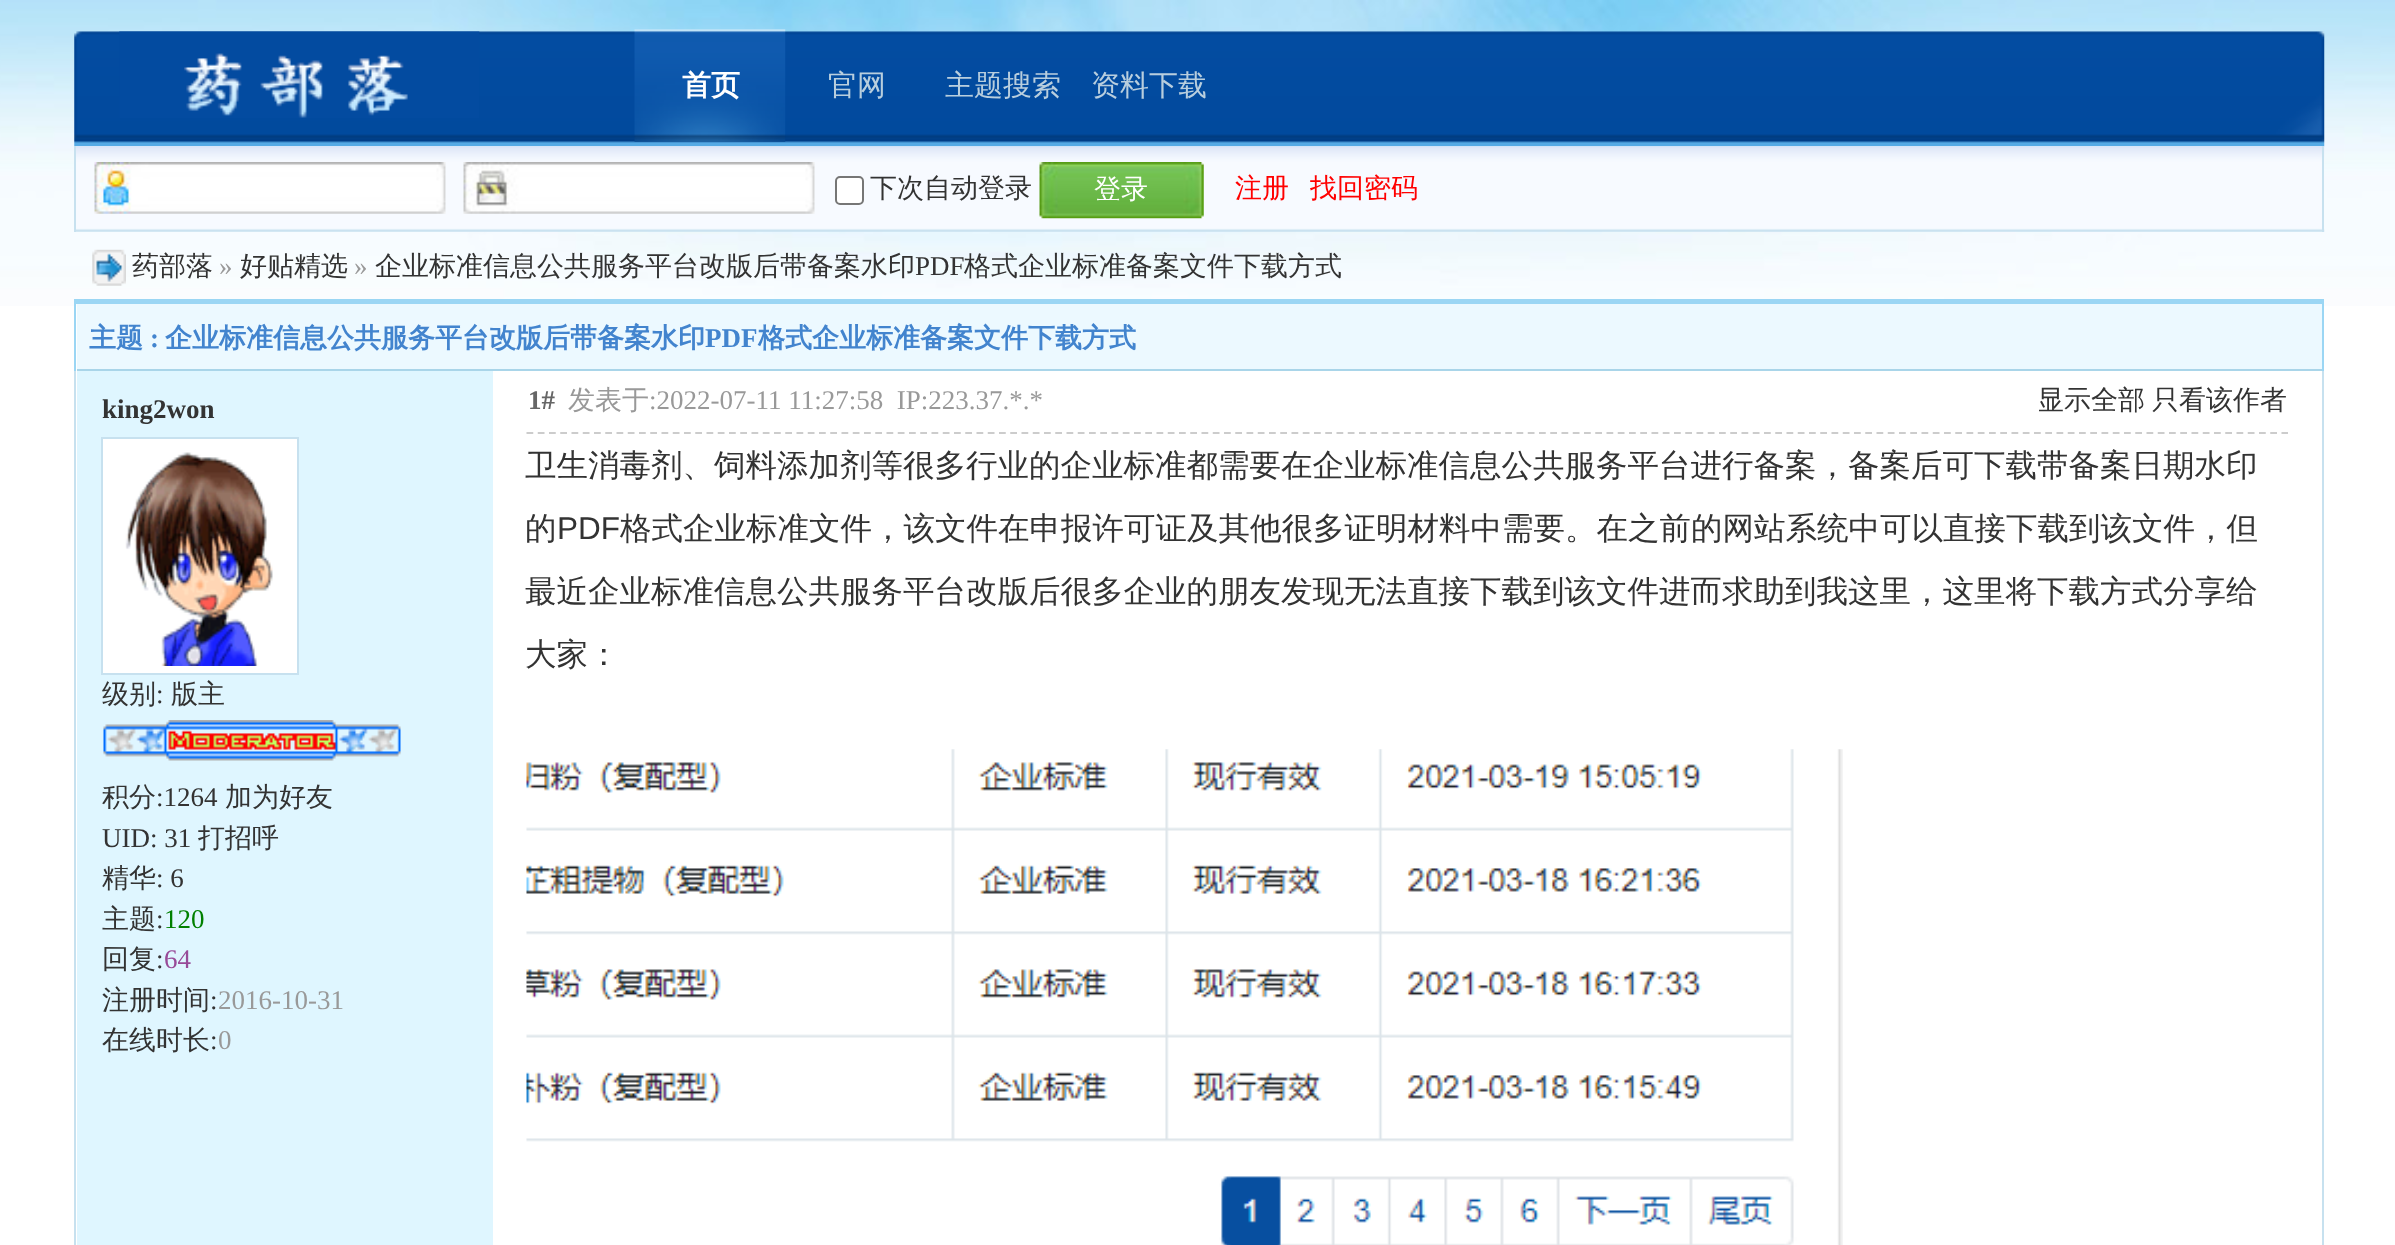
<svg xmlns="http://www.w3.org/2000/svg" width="2395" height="1245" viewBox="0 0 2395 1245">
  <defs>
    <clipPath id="clip1"><rect x="2039" y="371" width="249" height="61"/></clipPath>
  </defs>
  <rect width="100%" height="100%" fill="#ffffff"/>
  <image x="0" y="0" width="2395" height="306" href="img1.png"/>
  <image x="74" y="31" width="2251" height="116" href="img2.png"/>
  <image x="119" y="31" width="361" height="87" href="img3.png"/>
  <image x="634" y="29" width="152" height="113" href="img4.png"/>
  <text x="682" y="95" font-family="WenQuanYi Zen Hei" font-size="29" font-weight="bold" fill="#ffffff">首页</text>
  <text x="828" y="95" font-family="WenQuanYi Zen Hei" font-size="29" font-weight="500" fill="#b8cede">官网</text>
  <text x="945" y="95" font-family="WenQuanYi Zen Hei" font-size="29" font-weight="500" fill="#b8cede">主题搜索</text>
  <text x="1091" y="95" font-family="WenQuanYi Zen Hei" font-size="29" font-weight="500" fill="#b8cede">资料下载</text>
  <image x="76" y="146" width="2249" height="86" href="img5.png"/>
  <rect x="2322" y="146" width="2" height="86" fill="#c7e1ef"/>
  <rect x="74" y="146" width="2" height="86" fill="#c7e1ef"/>
  <image x="94" y="162" width="352" height="52" href="img6.png"/>
  <image x="463" y="162" width="352" height="52" href="img7.png"/>
  <rect x="836" y="177" width="27" height="27" rx="4" fill="#ffffff" stroke="#767676" stroke-width="2"/>
  <text x="870" y="197" font-family="WenQuanYi Zen Hei" font-size="27" font-weight="500" fill="#333333">下次自动登录</text>
  <image x="1039" y="162" width="165" height="57" href="img8.png"/>
  <text x="1094" y="198" font-family="WenQuanYi Zen Hei" font-size="27" font-weight="500" fill="#ffffff">登录</text>
  <text x="1235" y="197" font-family="WenQuanYi Zen Hei" font-size="27" font-weight="500" fill="#ff0000">注册</text>
  <text x="1310" y="197" font-family="WenQuanYi Zen Hei" font-size="27" font-weight="500" fill="#ff0000">找回密码</text>
  <image x="92" y="249" width="34" height="37" href="img9.png"/>
  <text x="132" y="275" font-family="WenQuanYi Zen Hei" font-size="27" font-weight="500" fill="#333333">药部落</text>
  <text x="219" y="275" font-family="Liberation Serif" font-size="27" fill="#999999">»</text>
  <text x="240" y="275" font-family="WenQuanYi Zen Hei" font-size="27" font-weight="500" fill="#333333">好贴精选</text>
  <text x="354" y="275" font-family="Liberation Serif" font-size="27" fill="#999999">»</text>
  <text x="375" y="275" font-family="WenQuanYi Zen Hei" font-size="27" font-weight="500" fill="#333333">企业标准信息公共服务平台改版后带备案水印</text>
  <text x="915" y="275" font-family="Liberation Serif" font-size="27" fill="#333333">PDF</text>
  <text x="964" y="275" font-family="WenQuanYi Zen Hei" font-size="27" font-weight="500" fill="#333333">格式企业标准备案文件下载方式</text>
  <rect x="74" y="299" width="2250" height="5" fill="#9bd6f4"/>
  <rect x="2322" y="299" width="2" height="72" fill="#9bd6f4"/>
  <rect x="74" y="299" width="2" height="72" fill="#9bd6f4"/>
  <rect x="77" y="369" width="2245" height="2" fill="#a9d5e9"/>
  <rect x="77" y="304" width="2245" height="65" fill="#ecf9ff"/>
  <text x="89" y="347" font-family="WenQuanYi Zen Hei" font-size="27" font-weight="bold" fill="#4284ce">主题</text>
  <text x="150" y="347" font-family="Liberation Serif" font-size="27" font-weight="bold" fill="#4284ce">:</text>
  <text x="165" y="347" font-family="WenQuanYi Zen Hei" font-size="27" font-weight="bold" fill="#4284ce">企业标准信息公共服务平台改版后带备案水印</text>
  <text x="705" y="347" font-family="Liberation Serif" font-size="27" font-weight="bold" fill="#4284ce">PDF</text>
  <text x="758" y="347" font-family="WenQuanYi Zen Hei" font-size="27" font-weight="bold" fill="#4284ce">格式企业标准备案文件下载方式</text>
  <rect x="2322" y="371" width="2" height="874" fill="#c7e1ef"/>
  <rect x="74" y="371" width="2" height="874" fill="#c7e1ef"/>
  <rect x="77" y="371" width="416" height="874" fill="#dff6ff"/>
  <text x="102" y="418" font-family="Liberation Serif" font-size="27" font-weight="bold" fill="#333333">king2won</text>
  <rect x="102" y="438" width="196" height="236" fill="#ffffff" stroke="#c7e1ef" stroke-width="2"/>
  <image x="125" y="452" width="148" height="214" href="img10.png"/>
  <text x="102" y="703" font-family="WenQuanYi Zen Hei" font-size="27" font-weight="500" fill="#333333">级别</text>
  <text x="156" y="703" font-family="Liberation Serif" font-size="27" fill="#333333">:</text>
  <text x="171" y="703" font-family="WenQuanYi Zen Hei" font-size="27" font-weight="500" fill="#333333">版主</text>
  <image x="103" y="720" width="298" height="41" href="img11.png"/>
  <text x="102" y="806" font-family="WenQuanYi Zen Hei" font-size="27" font-weight="500" fill="#333333">积分</text>
  <text x="156" y="806" font-family="Liberation Serif" font-size="27" fill="#333333">:1264</text>
  <text x="225" y="806" font-family="WenQuanYi Zen Hei" font-size="27" font-weight="500" fill="#333333">加为好友</text>
  <text x="102" y="847" font-family="Liberation Serif" font-size="27" fill="#333333">UID: 31</text>
  <text x="198" y="847" font-family="WenQuanYi Zen Hei" font-size="27" font-weight="500" fill="#333333">打招呼</text>
  <text x="102" y="887" font-family="WenQuanYi Zen Hei" font-size="27" font-weight="500" fill="#333333">精华</text>
  <text x="156" y="887" font-family="Liberation Serif" font-size="27" fill="#333333">: 6</text>
  <text x="102" y="928" font-family="WenQuanYi Zen Hei" font-size="27" font-weight="500" fill="#333333">主题</text>
  <text x="156" y="928" font-family="Liberation Serif" font-size="27" fill="#333333">:</text>
  <text x="164" y="928" font-family="Liberation Serif" font-size="27" fill="#008000">120</text>
  <text x="102" y="968" font-family="WenQuanYi Zen Hei" font-size="27" font-weight="500" fill="#333333">回复</text>
  <text x="156" y="968" font-family="Liberation Serif" font-size="27" fill="#333333">:</text>
  <text x="164" y="968" font-family="Liberation Serif" font-size="27" fill="#984b98">64</text>
  <text x="102" y="1009" font-family="WenQuanYi Zen Hei" font-size="27" font-weight="500" fill="#333333">注册时间</text>
  <text x="210" y="1009" font-family="Liberation Serif" font-size="27" fill="#333333">:</text>
  <text x="218" y="1009" font-family="Liberation Serif" font-size="27" fill="#999999">2016-10-31</text>
  <text x="102" y="1049" font-family="WenQuanYi Zen Hei" font-size="27" font-weight="500" fill="#333333">在线时长</text>
  <text x="210" y="1049" font-family="Liberation Serif" font-size="27" fill="#333333">:</text>
  <text x="218" y="1049" font-family="Liberation Serif" font-size="27" fill="#999999">0</text>
  <path d="M526.5 433H2288" fill="none" stroke="#cccccc" stroke-width="2.2" stroke-dasharray="6.75 4.5"/>
  <text x="528" y="409" font-family="Liberation Serif" font-size="27" font-weight="bold" fill="#666666">1#</text>
  <text x="568" y="409" font-family="WenQuanYi Zen Hei" font-size="27" font-weight="500" fill="#999999">发表于</text>
  <text x="649" y="409" font-family="Liberation Serif" font-size="27" fill="#999999" xml:space="preserve">:2022-07-11 11:27:58  IP:223.37.*.*</text>
  <g clip-path="url(#clip1)">
    <text x="2037" y="409" font-family="WenQuanYi Zen Hei" font-size="27" font-weight="500" fill="#333333">显示全部</text>
  </g>
  <text x="2152" y="409" font-family="WenQuanYi Zen Hei" font-size="27" font-weight="500" fill="#333333">只看该作者</text>
  <text x="525" y="476" font-family="WenQuanYi Zen Hei" font-size="31.5" font-weight="500" fill="#333333">卫生消毒剂、饲料添加剂等很多行业的企业标准都需要在企业标准信息公共服务平台进行备案，备案后可下载带备案日期水印</text>
  <text x="525" y="539" font-family="WenQuanYi Zen Hei" font-size="31.5" font-weight="500" fill="#333333">的</text>
  <text x="557" y="539" font-family="Liberation Sans" font-size="31.5" fill="#333333">PDF</text>
  <text x="620" y="539" font-family="WenQuanYi Zen Hei" font-size="31.5" font-weight="500" fill="#333333">格式企业标准文件，该文件在申报许可证及其他很多证明材料中需要。在之前的网站系统中可以直接下载到该文件，但</text>
  <text x="525" y="602" font-family="WenQuanYi Zen Hei" font-size="31.5" font-weight="500" fill="#333333">最近企业标准信息公共服务平台改版后很多企业的朋友发现无法直接下载到该文件进而求助到我这里，这里将下载方式分享给</text>
  <text x="525" y="665" font-family="WenQuanYi Zen Hei" font-size="31.5" font-weight="500" fill="#333333">大家：</text>
  <image x="526" y="749" width="1317" height="496" href="img12.png"/>
</svg>
